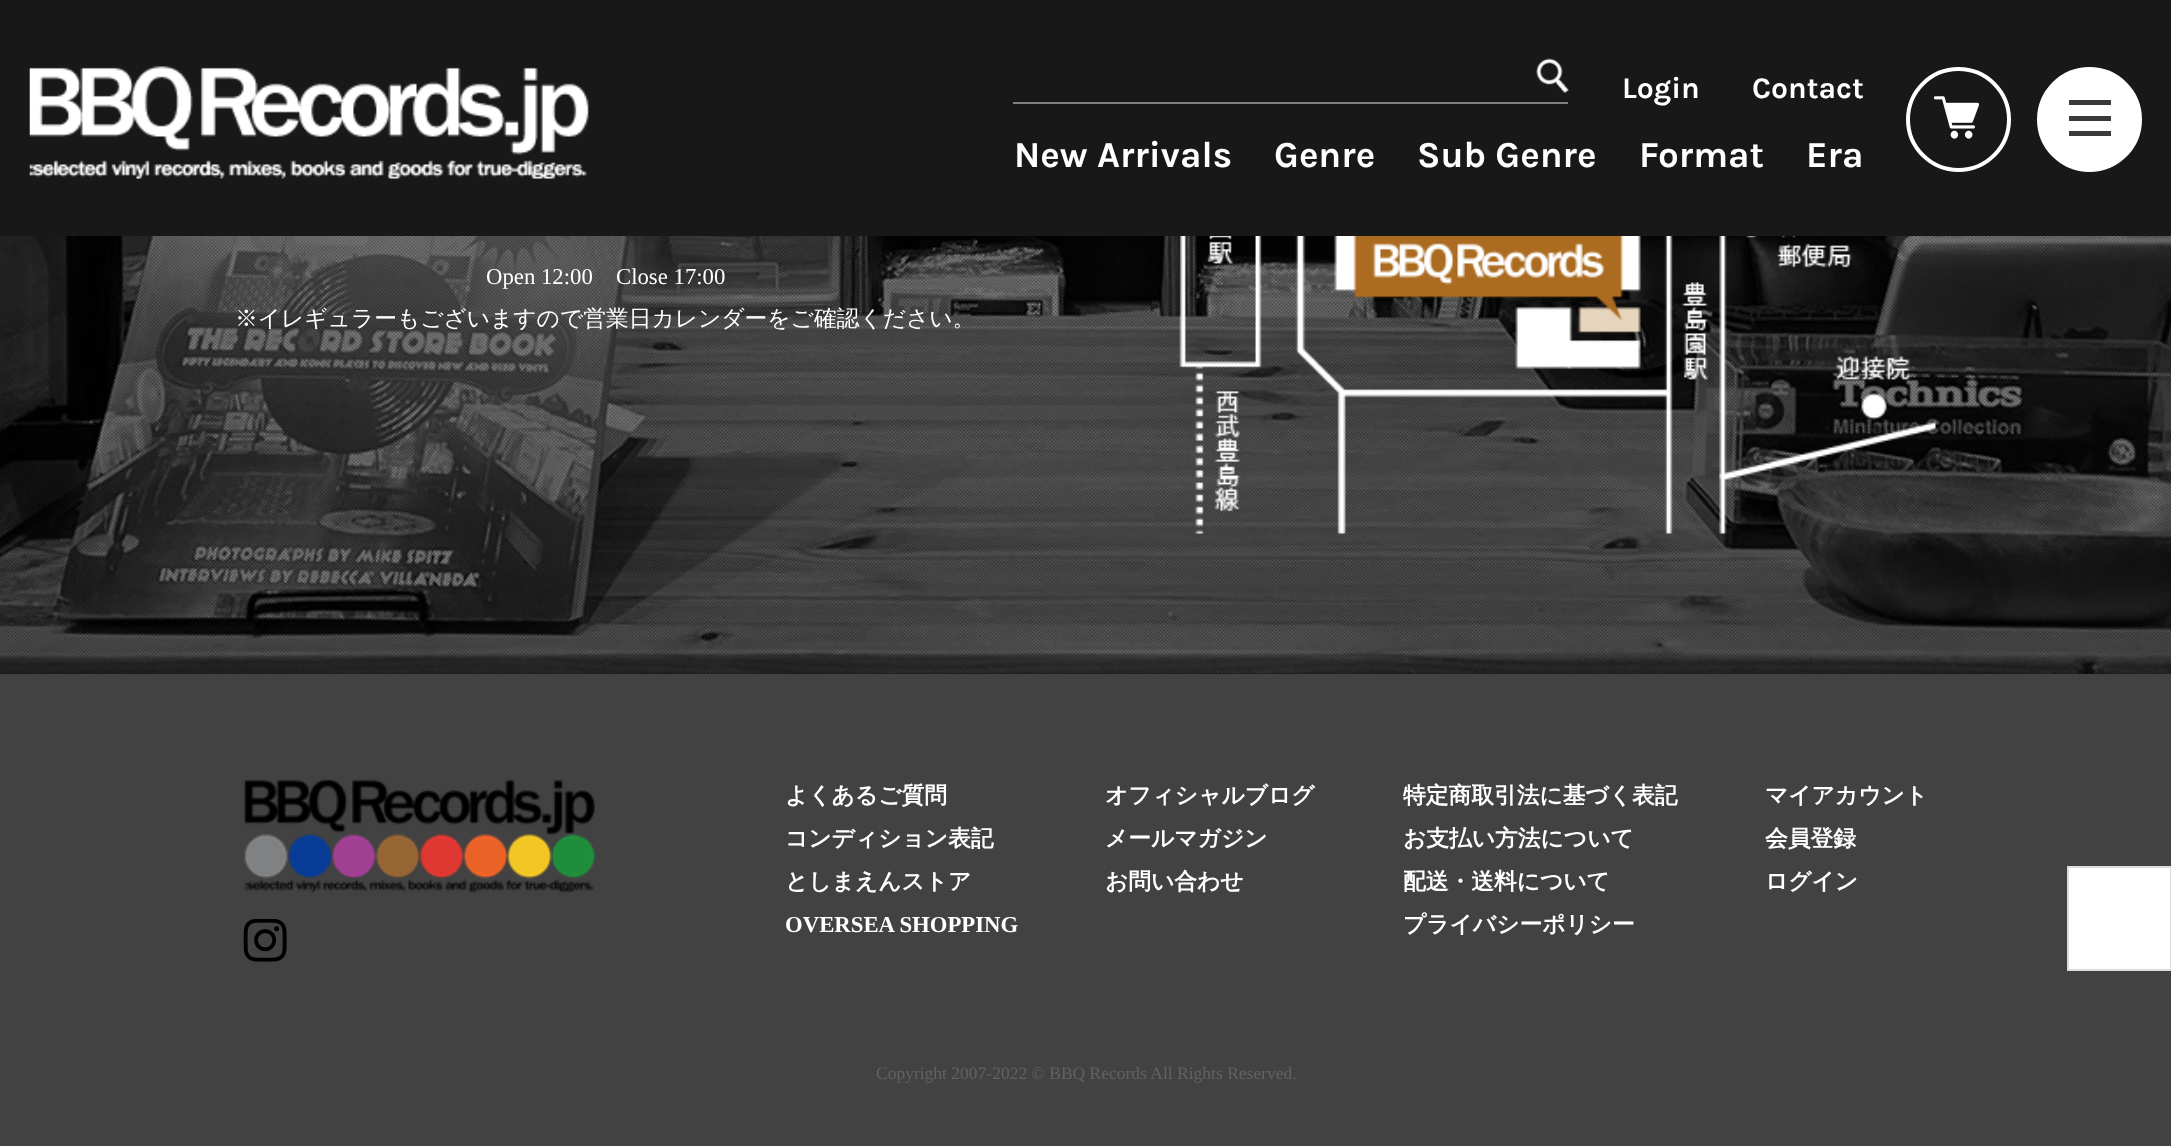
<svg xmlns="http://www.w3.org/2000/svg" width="2171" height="1146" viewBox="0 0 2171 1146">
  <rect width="100%" height="100%" fill="#181818"/>
  <image x="29" y="66" width="560" height="113" href="img1.png"/>
  <rect x="1013" y="102" width="555" height="2" fill="#7f7f7f"/>
  <image x="1536" y="58" width="33" height="35" href="img2.png"/>
  <text x="1622" y="98" font-family="Karla" font-size="30" font-weight="bold" fill="#ffffff">Login</text>
  <text x="1752" y="98" font-family="Karla" font-size="30" font-weight="bold" fill="#ffffff">Contact</text>
  <text x="1014" y="167" font-family="Karla" font-size="36.75" font-weight="bold" fill="#ffffff">New Arrivals</text>
  <text x="1274" y="167" font-family="Karla" font-size="36.75" font-weight="bold" fill="#ffffff">Genre</text>
  <text x="1417" y="167" font-family="Karla" font-size="36.75" font-weight="bold" fill="#ffffff">Sub Genre</text>
  <text x="1639" y="167" font-family="Karla" font-size="36.75" font-weight="bold" fill="#ffffff">Format</text>
  <text x="1806" y="167" font-family="Karla" font-size="36.75" font-weight="bold" fill="#ffffff">Era</text>
  <circle cx="1958.5" cy="119.5" r="50.5" fill="none" stroke="#ffffff" stroke-width="4"/>
  <image x="1934" y="96" width="45" height="43" href="img3.png"/>
  <circle cx="2089.5" cy="119.5" r="50.5" fill="#ffffff" stroke="#ffffff" stroke-width="4"/>
  <rect x="2069" y="116" width="42" height="5" fill="#3a3a3a"/>
  <rect x="2069" y="100" width="42" height="5" fill="#3a3a3a"/>
  <rect x="2069" y="131" width="42" height="5" fill="#3a3a3a"/>
  <image x="0" y="236" width="2171" height="438" href="img4.png"/>
  <text x="486" y="284" font-family="Liberation Serif" font-size="22.75" fill="#ffffff">Open 12:00</text>
  <text x="616" y="284" font-family="Liberation Serif" font-size="22.75" fill="#ffffff">Close 17:00</text>
  <text x="235" y="326" font-family="WenQuanYi Zen Hei" font-size="22.75" font-weight="500" fill="#ffffff">※イレギュラーもございますので営業日カレンダーをご確認ください。</text>
  <image x="1179" y="236" width="757" height="298" href="img5.png"/>
  <rect x="0" y="674" width="2171" height="472" fill="#424242"/>
  <image x="244" y="779" width="351" height="114" href="img6.png"/>
  <image x="243" y="919" width="44" height="43" href="img7.png"/>
  <text x="785" y="803" font-family="WenQuanYi Zen Hei" font-size="22.75" font-weight="bold" fill="#ffffff">よくあるご質問</text>
  <text x="785" y="846" font-family="WenQuanYi Zen Hei" font-size="22.75" font-weight="bold" fill="#ffffff">コンディション表記</text>
  <text x="785" y="889" font-family="WenQuanYi Zen Hei" font-size="22.75" font-weight="bold" fill="#ffffff">としまえんストア</text>
  <text x="785" y="932" font-family="Liberation Serif" font-size="22.75" font-weight="bold" fill="#ffffff">OVERSEA SHOPPING</text>
  <text x="1105" y="803" font-family="WenQuanYi Zen Hei" font-size="22.75" font-weight="bold" fill="#ffffff">オフィシャルブログ</text>
  <text x="1105" y="846" font-family="WenQuanYi Zen Hei" font-size="22.75" font-weight="bold" fill="#ffffff">メールマガジン</text>
  <text x="1105" y="889" font-family="WenQuanYi Zen Hei" font-size="22.75" font-weight="bold" fill="#ffffff">お問い合わせ</text>
  <text x="1403" y="803" font-family="WenQuanYi Zen Hei" font-size="22.75" font-weight="bold" fill="#ffffff">特定商取引法に基づく表記</text>
  <text x="1403" y="846" font-family="WenQuanYi Zen Hei" font-size="22.75" font-weight="bold" fill="#ffffff">お支払い方法について</text>
  <text x="1403" y="889" font-family="WenQuanYi Zen Hei" font-size="22.75" font-weight="bold" fill="#ffffff">配送・送料について</text>
  <text x="1403" y="932" font-family="WenQuanYi Zen Hei" font-size="22.75" font-weight="bold" fill="#ffffff">プライバシーポリシー</text>
  <text x="1765" y="803" font-family="WenQuanYi Zen Hei" font-size="22.75" font-weight="bold" fill="#ffffff">マイアカウント</text>
  <text x="1765" y="846" font-family="WenQuanYi Zen Hei" font-size="22.75" font-weight="bold" fill="#ffffff">会員登録</text>
  <text x="1765" y="889" font-family="WenQuanYi Zen Hei" font-size="22.75" font-weight="bold" fill="#ffffff">ログイン</text>
  <text x="876" y="1079" font-family="Liberation Serif" font-size="17.5" fill="#626262">Copyright 2007-2022 © BBQ Records All Rights Reserved.</text>
  <rect x="2068" y="867" width="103" height="103" fill="#ffffff" stroke="#dddddd" stroke-width="2"/>
</svg>
